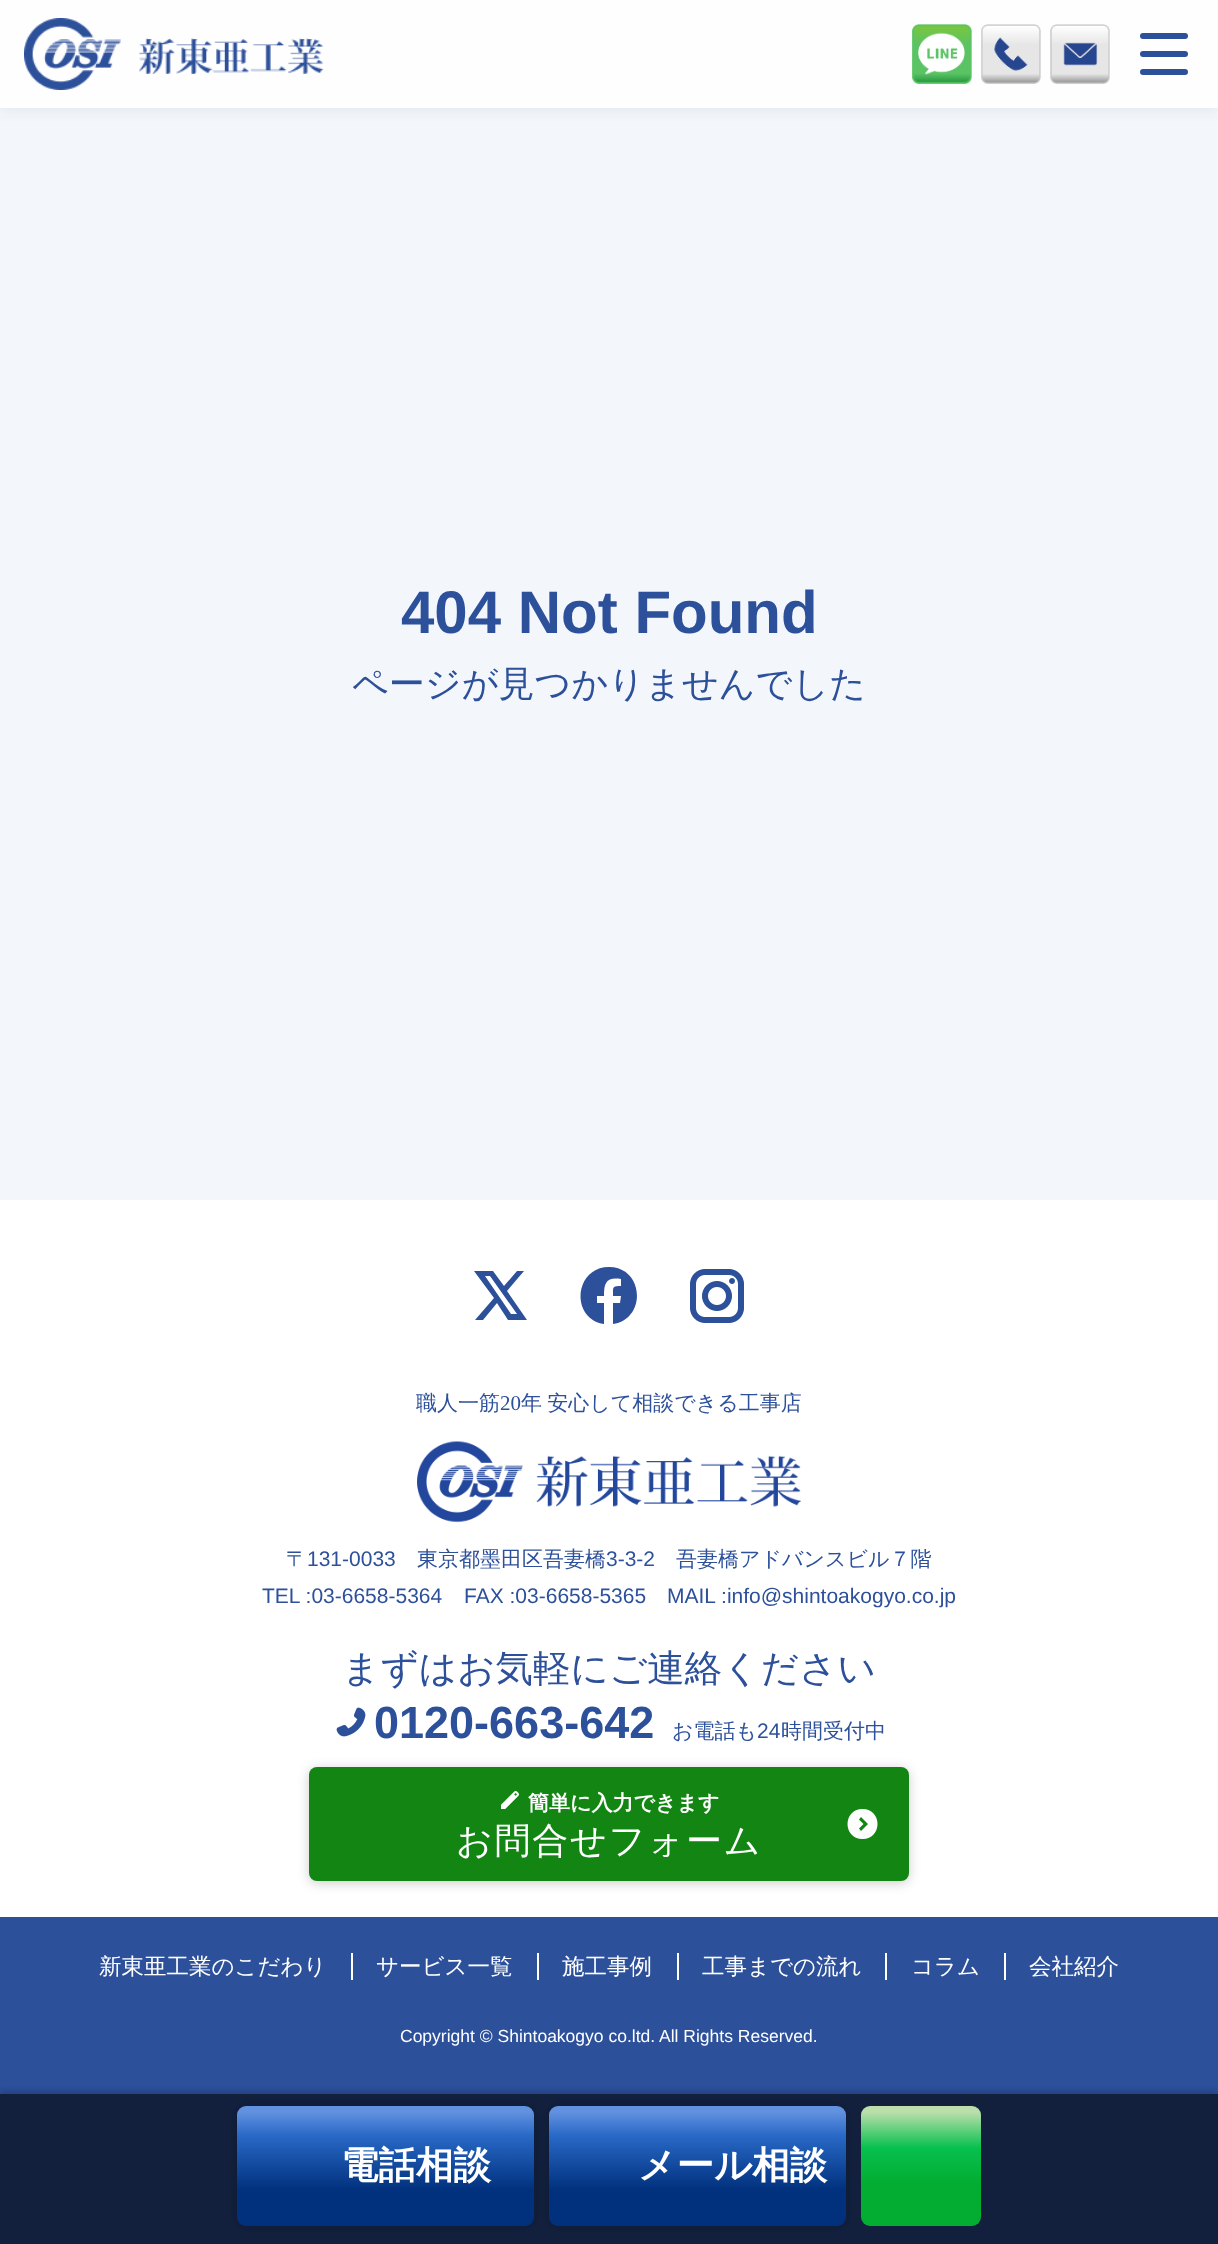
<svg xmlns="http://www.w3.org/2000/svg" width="1218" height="2244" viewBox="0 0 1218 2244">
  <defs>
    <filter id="blur1" x="-50%" y="-200%" width="200%" height="500%"><feGaussianBlur stdDeviation="6"/></filter>
    <filter id="blur2" x="-50%" y="-200%" width="200%" height="500%"><feGaussianBlur stdDeviation="3"/></filter>
    <linearGradient id="g1" gradientUnits="userSpaceOnUse" x1="386" y1="2106" x2="386" y2="2226"><stop offset="0.05" stop-color="#6291df"/><stop offset="0.25" stop-color="#2868c6"/><stop offset="0.7" stop-color="#01317d"/></linearGradient>
    <linearGradient id="g2" gradientUnits="userSpaceOnUse" x1="698" y1="2106" x2="698" y2="2226"><stop offset="0.05" stop-color="#6291df"/><stop offset="0.25" stop-color="#2868c6"/><stop offset="0.7" stop-color="#01317d"/></linearGradient>
    <linearGradient id="g3" gradientUnits="userSpaceOnUse" x1="921" y1="2106" x2="921" y2="2226"><stop offset="0.05" stop-color="#bbdfaa"/><stop offset="0.35" stop-color="#07c04e"/><stop offset="0.65" stop-color="#02ad31"/></linearGradient>
  </defs>
  <rect width="100%" height="100%" fill="#f3f6fb"/>
  <rect x="0" y="3" width="1218" height="108" fill="#646464" fill-opacity="0.1" filter="url(#blur1)"/>
  <rect x="0" y="0" width="1218" height="108" fill="#fefeff"/>
  <image x="24" y="18" width="300" height="72" href="img1.png"/>
  <image x="912" y="24" width="60" height="60" href="img2.png"/>
  <image x="981" y="24" width="60" height="60" href="img3.png"/>
  <image x="1050" y="24" width="60" height="60" href="img4.png"/>
  <rect x="1140" y="51" width="48" height="6" rx="3" fill="#2d509b"/>
  <rect x="1140" y="33" width="48" height="6" rx="3" fill="#2d509b"/>
  <rect x="1140" y="69" width="48" height="6" rx="3" fill="#2d509b"/>
  <text x="401" y="633" font-family="Liberation Sans" font-size="60" font-weight="bold" fill="#2d509b">404 Not Found</text>
  <text x="352" y="696" font-family="WenQuanYi Zen Hei" font-size="36" font-weight="500" fill="#2d509b">ページが見つかりませんでした</text>
  <rect x="0" y="1200" width="1218" height="717" fill="#ffffff"/>
  <path d="M474 1271L494 1298L475 1320H483L497 1303L508 1320H527L507 1291L524 1271H517L504 1286L493 1271ZM485 1276H490L517 1314H511Z" fill="#2d509b"/>
  <path d="M609 1267C574 1267 570 1319 604 1324V1303H597V1296H604C604 1282 607 1277 621 1279V1286C612 1286 613 1287 613 1296H621L620 1303H613V1324C647 1319 644 1267 609 1267Z" fill="#2d509b"/>
  <image x="690" y="1269" width="54" height="54" href="img5.png"/>
  <text x="416" y="1410" font-family="WenQuanYi Zen Hei" font-size="21" font-weight="500" fill="#2d509b">職人一筋</text>
  <text x="500" y="1410" font-family="Liberation Serif" font-size="21" fill="#2d509b">20</text>
  <text x="521" y="1410" word-spacing="-1" font-family="WenQuanYi Zen Hei" font-size="21" font-weight="500" fill="#2d509b">年 安心して相談できる工事店</text>
  <image x="417" y="1441" width="384" height="82" href="img6.png"/>
  <text x="286" y="1566" font-family="WenQuanYi Zen Hei" font-size="21" font-weight="500" fill="#2d509b">〒</text>
  <text x="307" y="1566" font-family="Liberation Sans" font-size="21" fill="#2d509b">131-0033</text>
  <text x="417" y="1566" font-family="WenQuanYi Zen Hei" font-size="21" font-weight="500" fill="#2d509b">東京都墨田区吾妻橋</text>
  <text x="606" y="1566" font-family="Liberation Sans" font-size="21" fill="#2d509b">3-3-2</text>
  <text x="676" y="1566" font-family="WenQuanYi Zen Hei" font-size="21" font-weight="500" fill="#2d509b">吾妻橋アドバンスビル７階</text>
  <text x="262" y="1603" font-family="Liberation Sans" font-size="21" fill="#2d509b">TEL :03-6658-5364</text>
  <text x="464" y="1603" font-family="Liberation Sans" font-size="21" fill="#2d509b">FAX :03-6658-5365</text>
  <text x="667" y="1603" font-family="Liberation Sans" font-size="21" fill="#2d509b">MAIL :info@shintoakogyo.co.jp</text>
  <text x="342" y="1681" font-family="WenQuanYi Zen Hei" font-size="37.5" font-weight="500" fill="#2d509b">まずはお気軽にご連絡ください</text>
  <image x="336" y="1707" width="30" height="30" href="img7.png"/>
  <text x="374" y="1738" font-family="Liberation Sans" font-size="45" font-weight="bold" fill="#2d509b">0120-663-642</text>
  <text x="672" y="1738" font-family="WenQuanYi Zen Hei" font-size="21" font-weight="500" fill="#2d509b">お電話も</text>
  <text x="757" y="1738" font-family="Liberation Sans" font-size="21" fill="#2d509b">24</text>
  <text x="781" y="1738" font-family="WenQuanYi Zen Hei" font-size="21" font-weight="500" fill="#2d509b">時間受付中</text>
  <rect x="309" y="1769" width="600" height="114" rx="8" fill="#000000" fill-opacity="0.2" filter="url(#blur1)"/>
  <rect x="309" y="1767" width="600" height="114" rx="8" fill="#128513"/>
  <path d="M863.5 1824L859 1828.5L861 1831L868 1824L861 1817L859 1819.5ZM862.5 1839C842.5 1839 842.5 1809 862.5 1809C882.5 1809 882.5 1839 862.5 1839Z" fill="#ffffff"/>
  <image x="501" y="1791" width="18" height="18" href="img8.png"/>
  <text x="528" y="1810" font-family="WenQuanYi Zen Hei" font-size="21" font-weight="bold" fill="#ffffff">簡単に入力できます</text>
  <text x="456" y="1853" font-family="WenQuanYi Zen Hei" font-size="36" font-weight="500" letter-spacing="1.75" fill="#ffffff">お問合せフォーム</text>
  <rect x="0" y="1917" width="1218" height="177" fill="#2d509b"/>
  <text x="99" y="1974" font-family="WenQuanYi Zen Hei" font-size="22.5" font-weight="500" fill="#ffffff">新東亜工業のこだわり</text>
  <rect x="351" y="1953" width="2" height="27" fill="#ffffff"/>
  <text x="376" y="1974" font-family="WenQuanYi Zen Hei" font-size="22.5" font-weight="500" fill="#ffffff">サービス一覧</text>
  <rect x="537" y="1953" width="2" height="27" fill="#ffffff"/>
  <text x="562" y="1974" font-family="WenQuanYi Zen Hei" font-size="22.5" font-weight="500" fill="#ffffff">施工事例</text>
  <rect x="677" y="1953" width="2" height="27" fill="#ffffff"/>
  <text x="702" y="1974" font-family="WenQuanYi Zen Hei" font-size="22.5" font-weight="500" fill="#ffffff">工事までの流れ</text>
  <rect x="885" y="1953" width="2" height="27" fill="#ffffff"/>
  <text x="911" y="1974" font-family="WenQuanYi Zen Hei" font-size="22.5" font-weight="500" fill="#ffffff">コラム</text>
  <rect x="1004" y="1953" width="2" height="27" fill="#ffffff"/>
  <text x="1029" y="1974" font-family="WenQuanYi Zen Hei" font-size="22.5" font-weight="500" fill="#ffffff">会社紹介</text>
  <text x="400" y="2042" font-family="Liberation Sans" font-size="17.5" fill="#ffffff">Copyright © Shintoakogyo co.ltd. All Rights Reserved.</text>
  <rect x="0" y="2091" width="1218" height="150" fill="#000000" fill-opacity="0.2" filter="url(#blur2)"/>
  <rect x="0" y="2094" width="1218" height="150" fill="#12203e"/>
  <rect x="237" y="2106" width="297" height="120" rx="9" fill="#000000" fill-opacity="0.2" filter="url(#blur1)"/>
  <rect x="237" y="2106" width="297" height="120" rx="9" fill="url(#g1)"/>
  <text x="341" y="2178" font-family="WenQuanYi Zen Hei" font-size="37.5" font-weight="bold" fill="#ffffff">電話相談</text>
  <rect x="549" y="2106" width="297" height="120" rx="9" fill="#000000" fill-opacity="0.2" filter="url(#blur1)"/>
  <rect x="549" y="2106" width="297" height="120" rx="9" fill="url(#g2)"/>
  <text x="638" y="2178" font-family="WenQuanYi Zen Hei" font-size="37.5" font-weight="bold" fill="#ffffff">メール相談</text>
  <rect x="861" y="2106" width="120" height="120" rx="9" fill="url(#g3)"/>
</svg>
